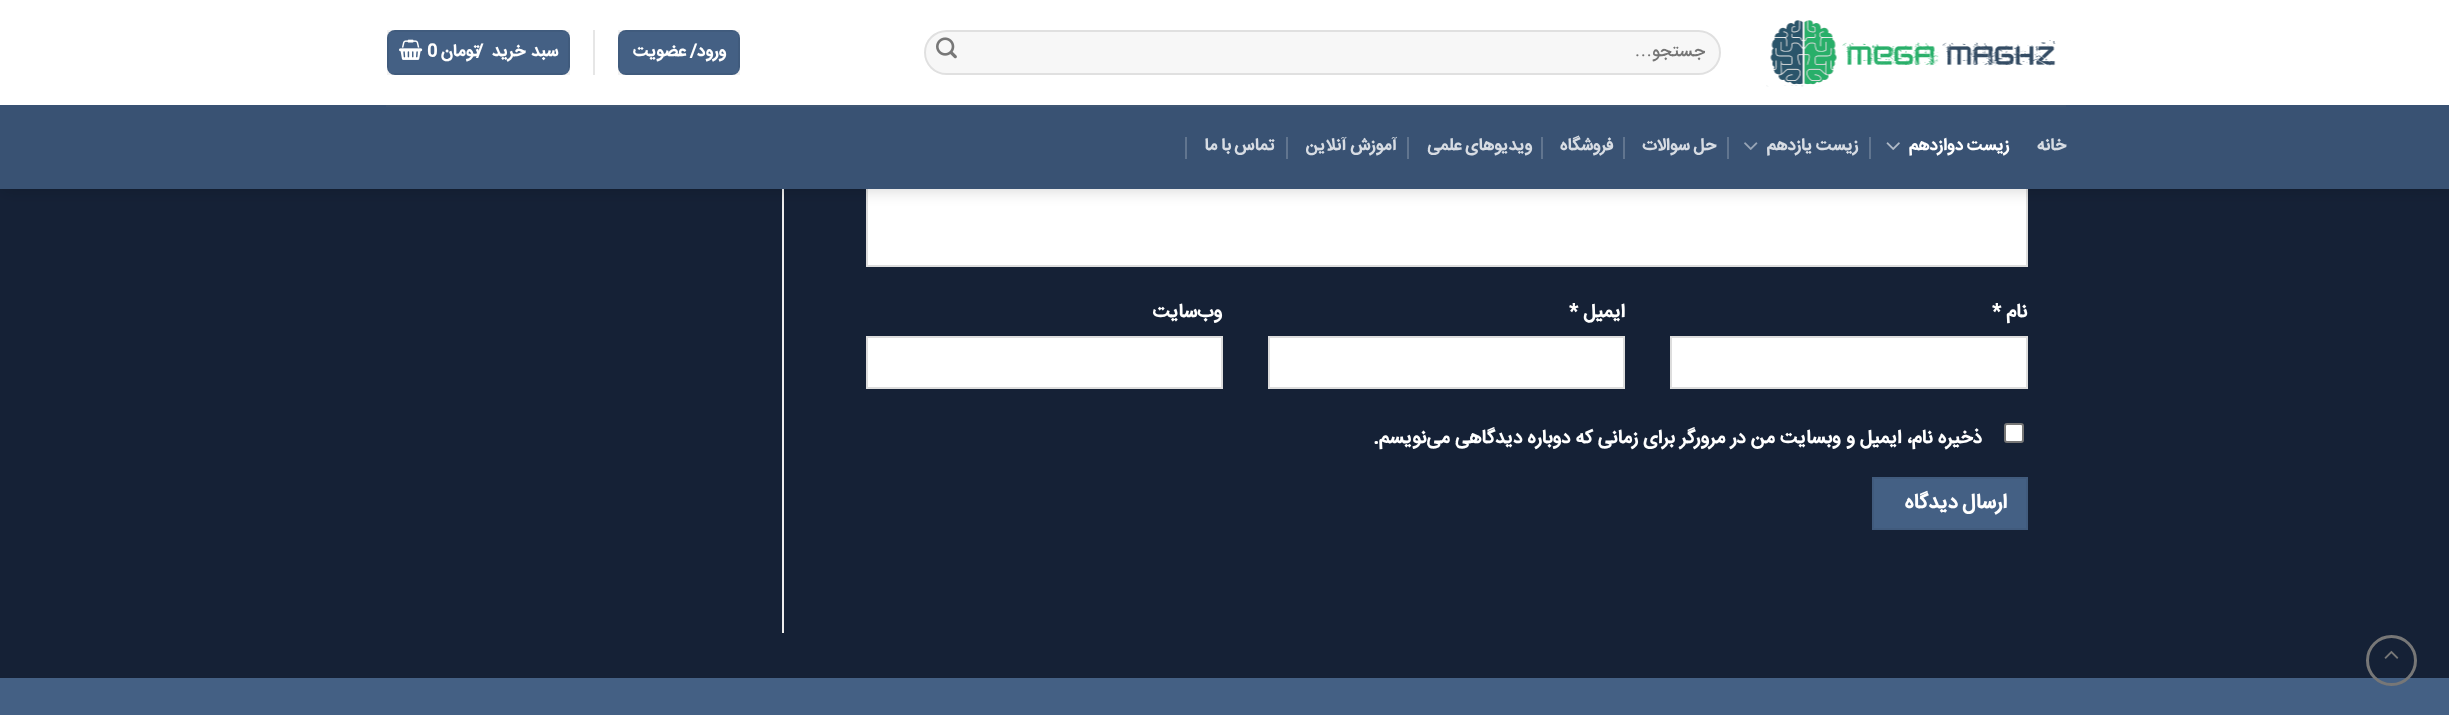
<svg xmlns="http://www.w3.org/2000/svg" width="2449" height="715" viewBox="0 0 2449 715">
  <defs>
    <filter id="blur1" x="-50%" y="-200%" width="200%" height="500%"><feGaussianBlur stdDeviation="7.5"/></filter>
  </defs>
  <rect width="100%" height="100%" fill="#152136"/>
  <rect x="868" y="189" width="1158" height="76" fill="#ffffff"/>
  <rect x="867" y="88" width="1160" height="178" fill="none" stroke="#dddddd" stroke-width="2"/>
  <rect x="782" y="189" width="2" height="444" fill="#ececec"/>
  <rect x="2" y="2" width="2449" height="189" fill="#000000" fill-opacity="0.15" filter="url(#blur1)"/>
  <rect x="0" y="0" width="2449" height="105" fill="#ffffff"/>
  <image x="1766" y="20" width="290" height="67" href="img1.png"/>
  <rect x="924" y="30" width="797" height="45" rx="22.5" fill="#f7f7f7"/>
  <rect x="925" y="31" width="795" height="43" rx="21.5" fill="none" stroke="#000000" stroke-opacity="0.09" stroke-width="2"/>
  <text x="1705" y="56" font-family="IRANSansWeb" font-size="17.5" font-weight="500" direction="rtl" fill="#757575">جستجو</text>
  <text x="1652" y="56" font-family="Liberation Serif" font-size="17.5" direction="rtl" fill="#757575">…</text>
  <image x="936" y="37" width="21" height="22" href="img2.png"/>
  <rect x="618" y="30" width="122" height="45" rx="8" fill="#446084"/>
  <rect x="619" y="31" width="120" height="43" fill="none" stroke="#000000" stroke-opacity="0.05" stroke-width="2"/>
  <text x="726" y="56" font-family="IRANSansWeb" font-size="17" font-weight="bold" letter-spacing="0.5" direction="rtl" fill="#ffffff">ورود</text>
  <text x="697" y="56" word-spacing="-1" font-family="IRANSansWeb" font-size="17" font-weight="bold" letter-spacing="0.5" direction="rtl" fill="#ffffff">/ عضویت</text>
  <rect x="593" y="30" width="2" height="45" fill="#e6e6e6"/>
  <rect x="387" y="30" width="183" height="45" rx="8" fill="#446084"/>
  <rect x="388" y="31" width="181" height="43" fill="none" stroke="#000000" stroke-opacity="0.05" stroke-width="2"/>
  <text x="558" y="56" word-spacing="1" font-family="IRANSansWeb" font-size="17" font-weight="bold" letter-spacing="0.5" direction="rtl" fill="#ffffff">سبد خرید</text>
  <text x="476" y="56" font-family="IRANSansWeb" font-size="17" font-weight="bold" letter-spacing="0.5" fill="#ffffff">/</text>
  <text x="479" y="56" font-family="IRANSansWeb" font-size="17" font-weight="bold" letter-spacing="0.5" direction="rtl" fill="#ffffff">تومان</text>
  <text x="427" y="56" font-family="IRANSansWeb" font-size="17" font-weight="bold" letter-spacing="0.5" fill="#ffffff">0</text>
  <image x="399" y="39" width="24" height="21" href="img3.png"/>
  <rect x="0" y="105" width="2449" height="84" fill="#395273"/>
  <rect x="386" y="105" width="1680" height="2" fill="#3f5673"/>
  <text x="2066" y="150" font-family="IRANSansWeb" font-size="17" font-weight="bold" letter-spacing="0.3" direction="rtl" fill="#d7dce3">خانه</text>
  <text x="2009" y="150" word-spacing="-1" font-family="IRANSansWeb" font-size="17" font-weight="bold" letter-spacing="0.3" direction="rtl" fill="#ffffff">زیست دوازدهم</text>
  <image x="1886" y="142" width="14" height="8" href="img4.png"/>
  <rect x="1869" y="137" width="2" height="22" fill="#61758f"/>
  <text x="1858" y="150" word-spacing="-1" font-family="IRANSansWeb" font-size="17" font-weight="bold" letter-spacing="0.3" direction="rtl" fill="#d7dce3">زیست یازدهم</text>
  <image x="1744" y="142" width="14" height="8" href="img5.png"/>
  <rect x="1727" y="137" width="2" height="22" fill="#61758f"/>
  <text x="1716" y="150" word-spacing="-1" font-family="IRANSansWeb" font-size="17" font-weight="bold" letter-spacing="0.3" direction="rtl" fill="#d7dce3">حل سوالات</text>
  <rect x="1623" y="137" width="2" height="22" fill="#61758f"/>
  <text x="1613" y="150" font-family="IRANSansWeb" font-size="17" font-weight="bold" letter-spacing="0.3" direction="rtl" fill="#d7dce3">فروشگاه</text>
  <rect x="1541" y="137" width="2" height="22" fill="#61758f"/>
  <text x="1532" y="150" word-spacing="-1" font-family="IRANSansWeb" font-size="17" font-weight="bold" letter-spacing="0.3" direction="rtl" fill="#d7dce3">ویدیوهای علمی</text>
  <rect x="1407" y="137" width="2" height="22" fill="#61758f"/>
  <text x="1397" y="150" word-spacing="-1" font-family="IRANSansWeb" font-size="17" font-weight="bold" letter-spacing="0.3" direction="rtl" fill="#d7dce3">آموزش آنلاین</text>
  <rect x="1286" y="137" width="2" height="22" fill="#61758f"/>
  <text x="1274" y="150" word-spacing="-1" font-family="IRANSansWeb" font-size="17" font-weight="bold" letter-spacing="0.3" direction="rtl" fill="#d7dce3">تماس با ما</text>
  <rect x="1185" y="137" width="2" height="22" fill="#61758f"/>
  <text x="2027" y="317" font-family="IRANSansWeb" font-size="19" font-weight="bold" direction="rtl" fill="#ffffff">نام</text>
  <text x="1992" y="317" font-family="IRANSansWeb" font-size="19" font-weight="bold" fill="#ffffff">*</text>
  <rect x="1671" y="337" width="356" height="51" fill="#ffffff" stroke="#dddddd" stroke-width="2"/>
  <text x="1625" y="317" font-family="IRANSansWeb" font-size="19" font-weight="bold" direction="rtl" fill="#ffffff">ایمیل</text>
  <text x="1569" y="317" font-family="IRANSansWeb" font-size="19" font-weight="bold" fill="#ffffff">*</text>
  <rect x="1269" y="337" width="355" height="51" fill="#ffffff" stroke="#dddddd" stroke-width="2"/>
  <text x="1222" y="317" font-family="IRANSansWeb" font-size="19" font-weight="bold" direction="rtl" fill="#ffffff">وب‌سایت</text>
  <rect x="867" y="337" width="355" height="51" fill="#ffffff" stroke="#dddddd" stroke-width="2"/>
  <rect x="2005" y="424" width="18" height="18" rx="2" fill="#ffffff" stroke="#767676" stroke-width="2"/>
  <text x="1982" y="443" font-family="IRANSansWeb" font-size="19" font-weight="bold" direction="rtl" fill="#ffffff">ذخیره نام، ایمیل و وبسایت من در مرورگر برای زمانی که دوباره دیدگاهی می‌نویسم.</text>
  <rect x="1873" y="478" width="154" height="51" fill="#446084" stroke="#415b7d" stroke-width="2"/>
  <text x="2007" y="508" word-spacing="-1" font-family="IRANSansWeb" font-size="20.5" font-weight="bold" letter-spacing="0.6" direction="rtl" fill="#ffffff">ارسال دیدگاه</text>
  <rect x="0" y="678" width="2449" height="37" fill="#446084"/>
  <circle cx="2391.5" cy="660.5" r="24" fill="none" stroke="#777777" stroke-width="3"/>
  <image x="2384" y="650" width="15" height="9" href="img6.png"/>
</svg>
